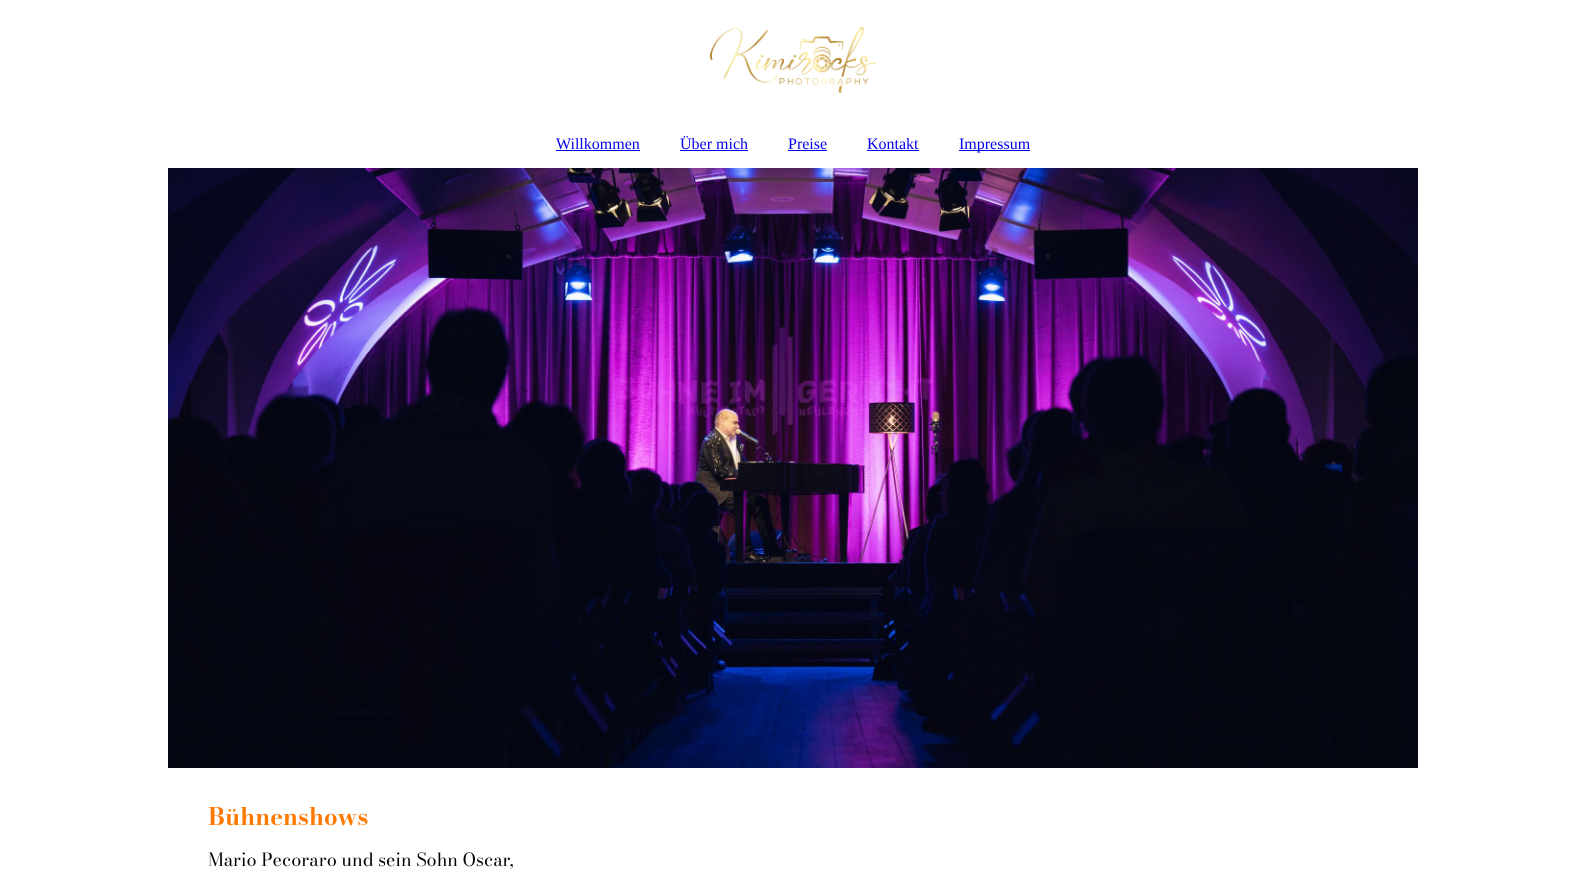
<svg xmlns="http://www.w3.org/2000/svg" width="1586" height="888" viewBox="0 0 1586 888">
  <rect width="100%" height="100%" fill="#ffffff"/>
  <image x="710" y="27" width="166" height="66" href="img1.png"/>
  <text x="556" y="149" font-family="Liberation Serif" font-size="16" fill="#0000ee">Willkommen</text>
  <rect x="556" y="150" width="84" height="1" fill="#0000ee"/>
  <text x="680" y="149" font-family="Liberation Serif" font-size="16" fill="#0000ee">Über mich</text>
  <rect x="680" y="150" width="68" height="1" fill="#0000ee"/>
  <text x="788" y="149" font-family="Liberation Serif" font-size="16" fill="#0000ee">Preise</text>
  <rect x="788" y="150" width="39" height="1" fill="#0000ee"/>
  <text x="867" y="149" font-family="Liberation Serif" font-size="16" fill="#0000ee">Kontakt</text>
  <rect x="867" y="150" width="52" height="1" fill="#0000ee"/>
  <rect x="959" y="150" width="71" height="1" fill="#0000ee"/>
  <text x="959" y="149" font-family="Liberation Serif" font-size="16" fill="#0000ee">Impressum</text>
  <image x="168" y="168" width="1250" height="600" href="img2.png"/>
  <text x="208" y="825" font-family="Bodoni Moda" font-size="24" font-weight="bold" fill="#ff7900">Bühnenshows</text>
  <text x="208" y="866" font-family="Bodoni Moda" font-size="18" fill="#000000">Mario Pecoraro und sein Sohn Oscar,</text>
</svg>
